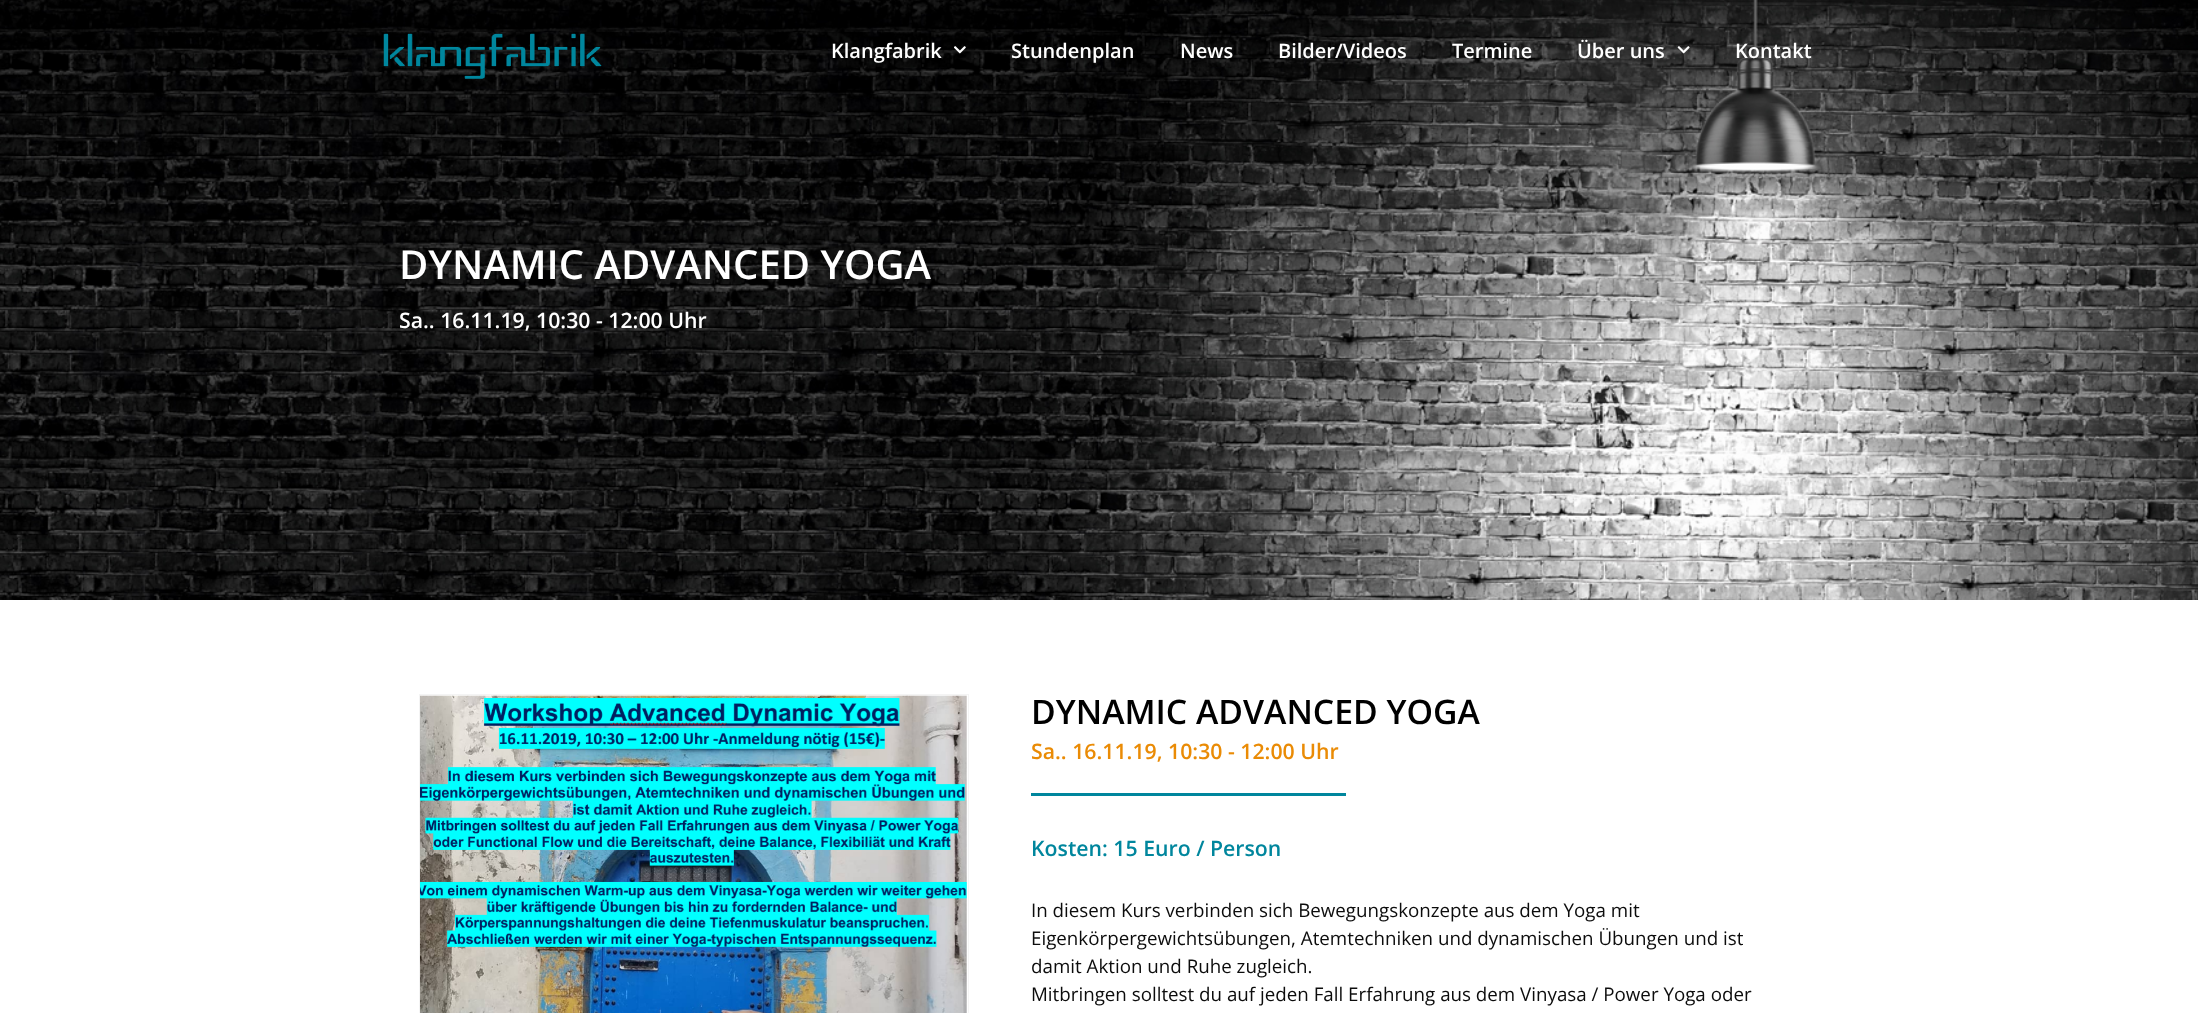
<svg xmlns="http://www.w3.org/2000/svg" width="2198" height="1013" viewBox="0 0 2198 1013">
  <rect width="100%" height="100%" fill="#ffffff"/>
  <image x="0" y="0" width="2198" height="600" href="img4.png"/>
  <image x="383" y="33" width="219" height="46" href="img1.png"/>
  <text x="831" y="58" font-family="Open Sans" font-size="20" font-weight="600" fill="#ffffff">Klangfabrik</text>
  <image x="954" y="46" width="12" height="8" href="img2.png"/>
  <text x="1011" y="58" font-family="Open Sans" font-size="20" font-weight="600" fill="#ffffff">Stundenplan</text>
  <text x="1180" y="58" font-family="Open Sans" font-size="20" font-weight="600" fill="#ffffff">News</text>
  <text x="1278" y="58" font-family="Open Sans" font-size="20" font-weight="600" fill="#ffffff">Bilder/Videos</text>
  <text x="1452" y="58" font-family="Open Sans" font-size="20" font-weight="600" fill="#ffffff">Termine</text>
  <text x="1577" y="58" font-family="Open Sans" font-size="20" font-weight="600" fill="#ffffff">Über uns</text>
  <image x="1677" y="46" width="13" height="8" href="img3.png"/>
  <text x="1735" y="58" font-family="Open Sans" font-size="20" font-weight="600" fill="#ffffff">Kontakt</text>
  <text x="399" y="279" font-family="Open Sans" font-size="40" font-weight="600" fill="#ffffff">DYNAMIC ADVANCED YOGA</text>
  <text x="399" y="328" font-family="Open Sans" font-size="21.25" font-weight="600" fill="#ffffff">Sa.. 16.11.19, 10:30 - 12:00 Uhr</text>
  <rect x="419.5" y="694.5" width="549" height="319" fill="none" stroke="#f4f4f4"/>
  <image x="420" y="695" width="547" height="318" href="img5.png"/>
  <text x="1031" y="724" font-family="Open Sans" font-size="33.75" font-weight="600" fill="#000000">DYNAMIC ADVANCED YOGA</text>
  <text x="1031" y="759" font-family="Open Sans" font-size="21.25" font-weight="600" fill="#ea8b05">Sa.. 16.11.19, 10:30 - 12:00 Uhr</text>
  <rect x="1031" y="793" width="315" height="3" fill="#00869d"/>
  <text x="1031" y="856" font-family="Open Sans" font-size="21.25" font-weight="600" fill="#00869d">Kosten: 15 Euro / Person</text>
  <text x="1031" y="917" font-family="Open Sans" font-size="18.75" fill="#0c0c0c">In diesem Kurs verbinden sich Bewegungskonzepte aus dem Yoga mit</text>
  <text x="1031" y="945" font-family="Open Sans" font-size="18.75" fill="#0c0c0c">Eigenkörpergewichtsübungen, Atemtechniken und dynamischen Übungen und ist</text>
  <text x="1031" y="973" font-family="Open Sans" font-size="18.75" fill="#0c0c0c">damit Aktion und Ruhe zugleich.</text>
  <text x="1031" y="1001" font-family="Open Sans" font-size="18.75" fill="#0c0c0c">Mitbringen solltest du auf jeden Fall Erfahrung aus dem Vinyasa / Power Yoga oder</text>
</svg>
